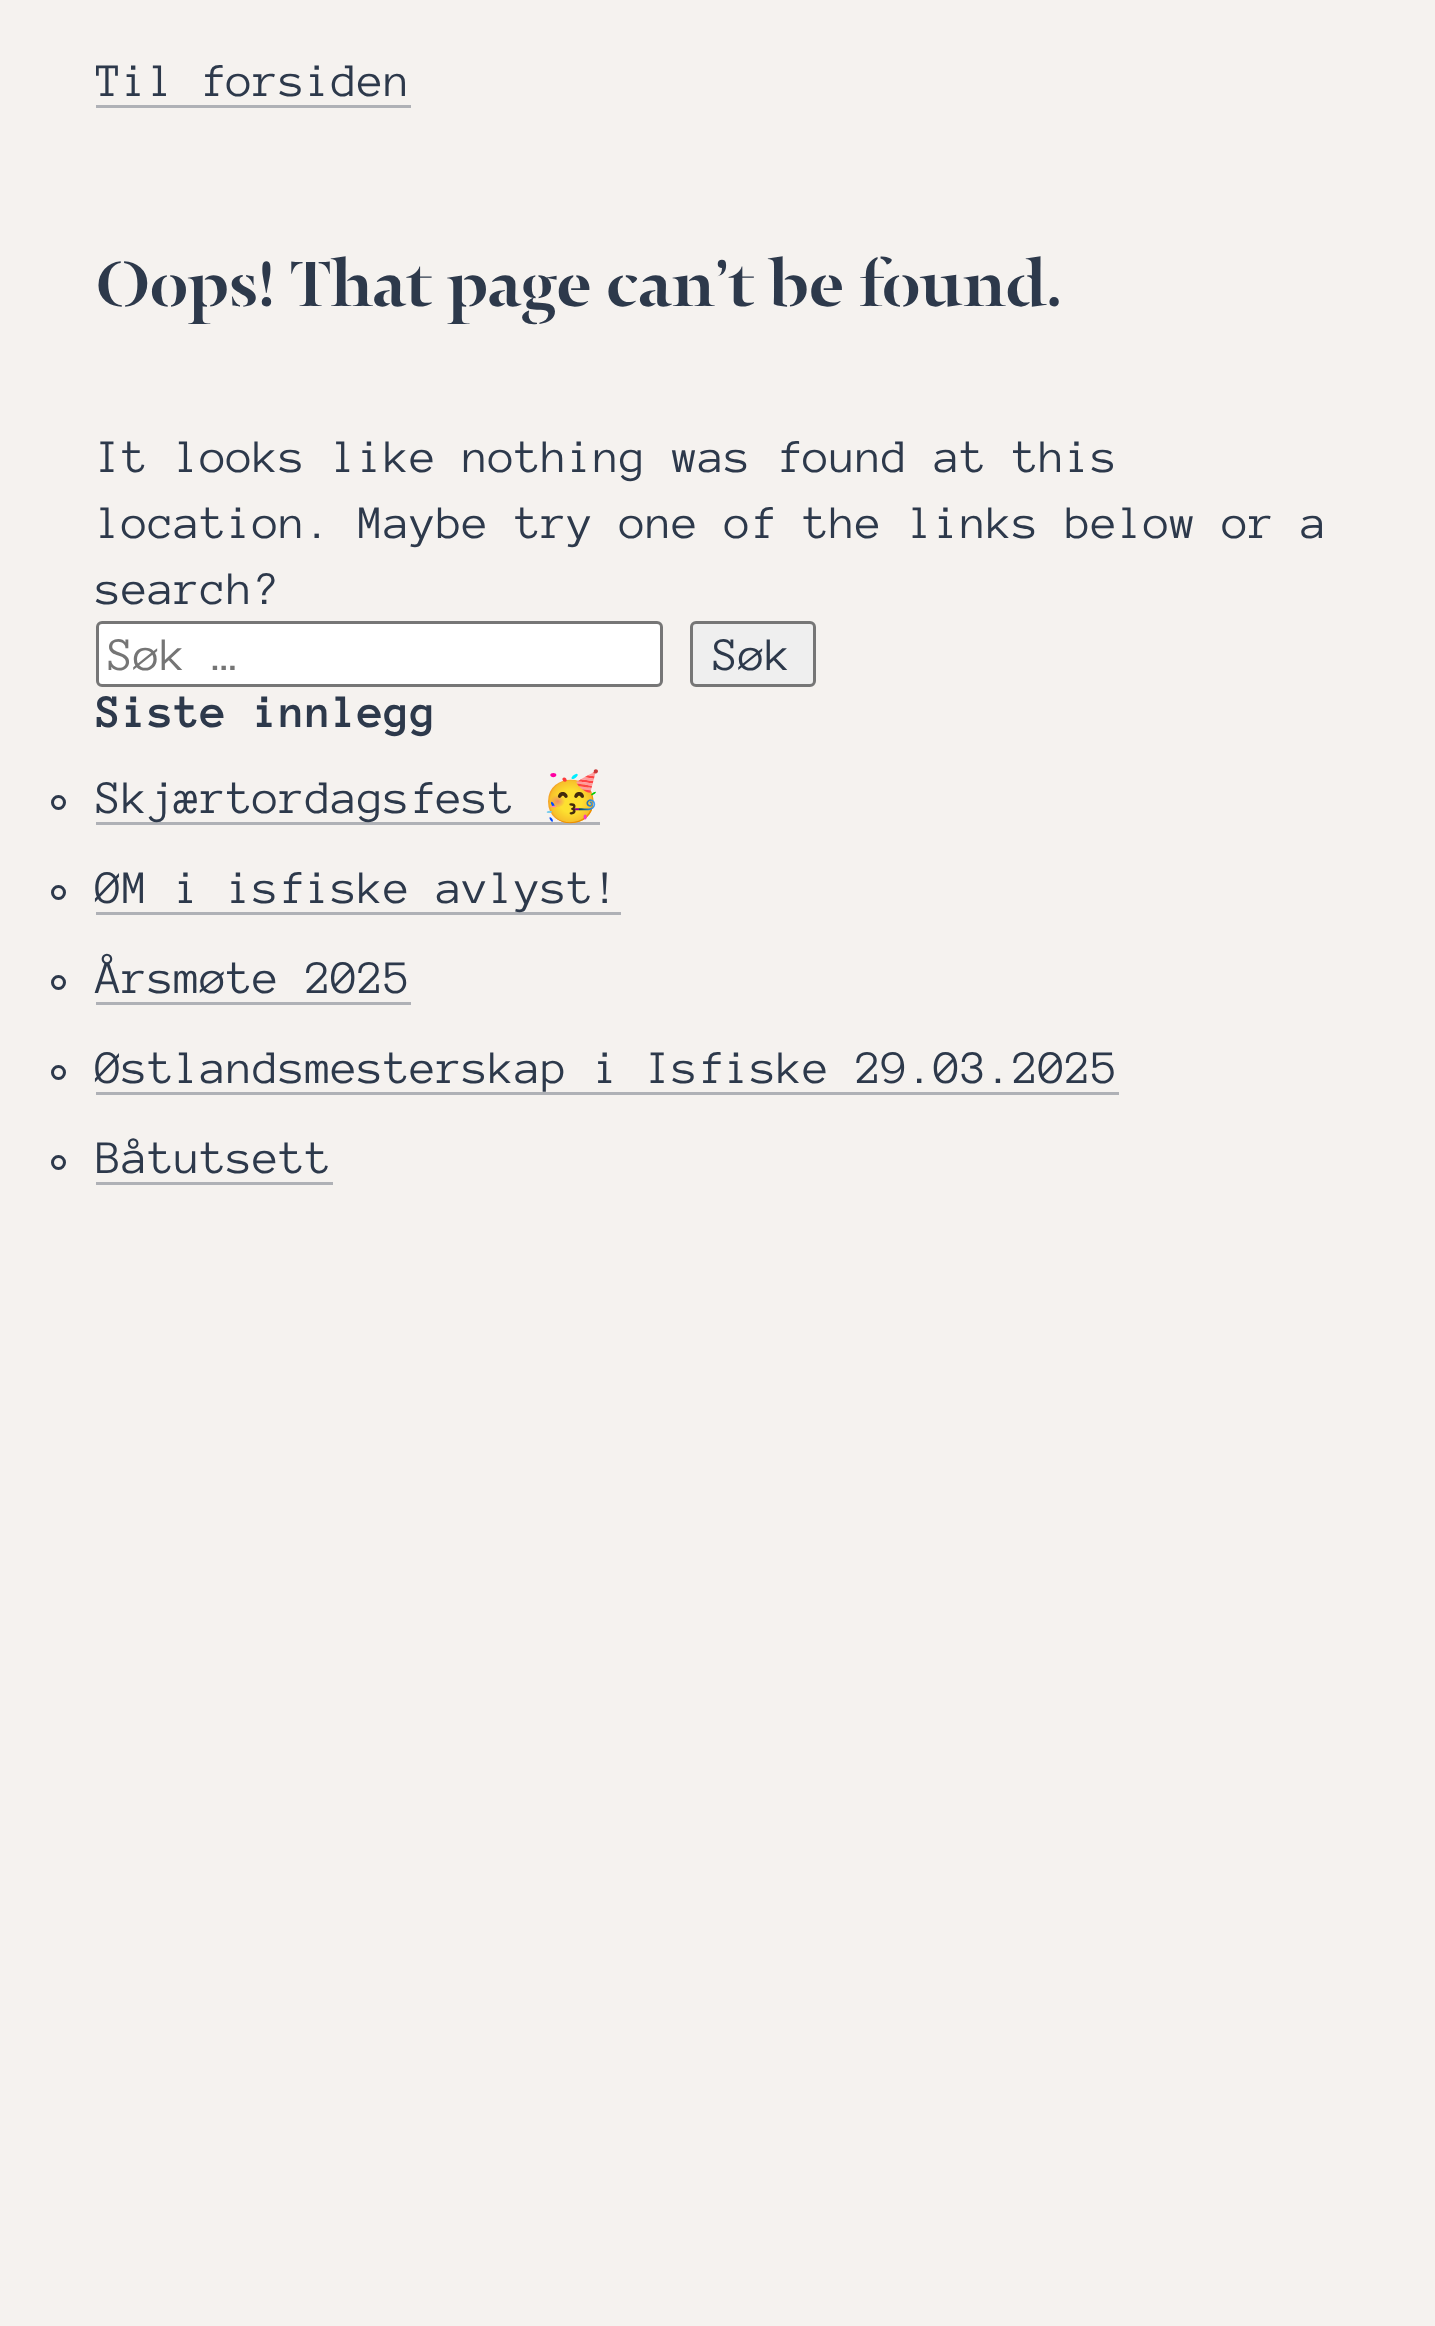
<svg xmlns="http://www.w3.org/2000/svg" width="1435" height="2326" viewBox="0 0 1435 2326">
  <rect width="100%" height="100%" fill="#f5f2ef"/>
  <text x="96" y="96" font-family="Anonymous Pro" font-size="48" fill="#2d394b">Til forsiden</text>
  <rect x="96" y="105" width="315" height="3" fill="#afb1b6"/>
  <text x="96" y="306" font-family="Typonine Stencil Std" font-size="72" font-weight="bold" fill="#2d394b">Oops! That page can’t be found.</text>
  <text x="96" y="472" font-family="Anonymous Pro" font-size="48" fill="#2d394b">It looks like nothing was found at this</text>
  <text x="96" y="538" font-family="Anonymous Pro" font-size="48" fill="#2d394b">location. Maybe try one of the links below or a</text>
  <text x="96" y="604" font-family="Anonymous Pro" font-size="48" fill="#2d394b">search?</text>
  <rect x="97.5" y="622.5" width="564" height="63" rx="4.5" fill="#ffffff" stroke="#767676" stroke-width="3"/>
  <text x="108" y="670" font-family="Anonymous Pro" font-size="48" fill="#757575">Søk …</text>
  <rect x="691.5" y="622.5" width="123" height="63" rx="4.5" fill="#efefef" stroke="#767676" stroke-width="3"/>
  <text x="713" y="670" font-family="Anonymous Pro" font-size="48" fill="#2d394b">Søk</text>
  <text x="96" y="727" font-family="Anonymous Pro" font-size="48" font-weight="bold" fill="#2d394b">Siste innlegg</text>
  <circle cx="58.5" cy="802.5" r="6" fill="none" stroke="#2d394b" stroke-width="3"/>
  <rect x="96" y="822" width="504" height="3" fill="#afb1b6"/>
  <text x="96" y="813" font-family="Anonymous Pro" font-size="48" fill="#2d394b">Skjærtordagsfest</text>
  <text x="541" y="813" font-family="Noto Color Emoji" font-size="48" fill="#2d394b">🥳</text>
  <circle cx="58.5" cy="892.5" r="6" fill="none" stroke="#2d394b" stroke-width="3"/>
  <rect x="96" y="912" width="525" height="3" fill="#afb1b6"/>
  <text x="96" y="903" font-family="Anonymous Pro" font-size="48" fill="#2d394b">ØM i isfiske avlyst!</text>
  <circle cx="58.5" cy="982.5" r="6" fill="none" stroke="#2d394b" stroke-width="3"/>
  <text x="96" y="993" font-family="Anonymous Pro" font-size="48" fill="#2d394b">Årsmøte 2025</text>
  <rect x="96" y="1002" width="315" height="3" fill="#afb1b6"/>
  <circle cx="58.5" cy="1072.5" r="6" fill="none" stroke="#2d394b" stroke-width="3"/>
  <text x="96" y="1083" font-family="Anonymous Pro" font-size="48" fill="#2d394b">Østlandsmesterskap i Isfiske 29.03.2025</text>
  <rect x="96" y="1092" width="1023" height="3" fill="#afb1b6"/>
  <circle cx="58.5" cy="1162.5" r="6" fill="none" stroke="#2d394b" stroke-width="3"/>
  <text x="96" y="1173" font-family="Anonymous Pro" font-size="48" fill="#2d394b">Båtutsett</text>
  <rect x="96" y="1182" width="237" height="3" fill="#afb1b6"/>
</svg>
